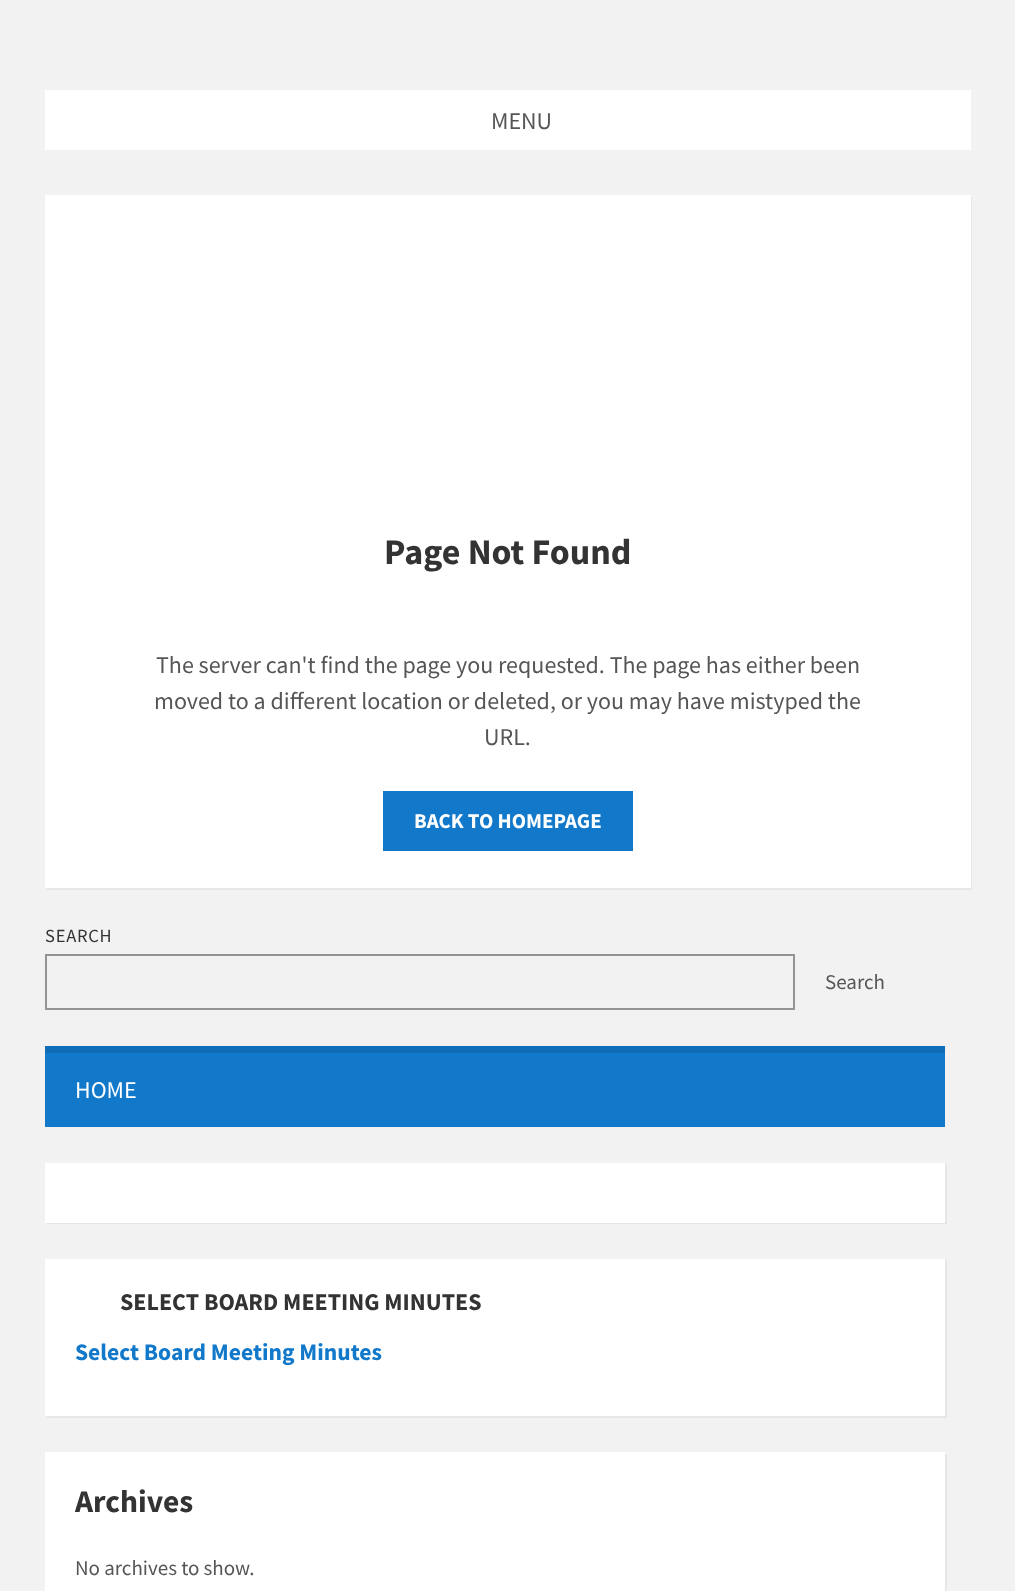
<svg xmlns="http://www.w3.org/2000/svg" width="1015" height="1591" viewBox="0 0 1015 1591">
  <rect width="100%" height="100%" fill="#f2f2f2"/>
  <rect x="45" y="90" width="926" height="60" fill="#ffffff"/>
  <text x="491" y="129" font-family="Source Sans Pro" font-size="24" fill="#565656">MENU</text>
  <path d="M47 888V890H972V197H970V888Z" fill="#e6e6e6"/>
  <rect x="45" y="195" width="926" height="693" fill="#ffffff"/>
  <text x="384" y="564" font-family="Source Sans Pro" font-size="36" font-weight="bold" fill="#333333">Page Not Found</text>
  <text x="156" y="673" font-family="Source Sans Pro" font-size="24" fill="#565656">The server can't find the page you requested. The page has either been</text>
  <text x="154" y="709" font-family="Source Sans Pro" font-size="24" fill="#565656">moved to a different location or deleted, or you may have mistyped the</text>
  <text x="484" y="745" font-family="Source Sans Pro" font-size="24" fill="#565656">URL.</text>
  <rect x="383" y="791" width="250" height="60" fill="#1178ca"/>
  <text x="414" y="828" font-family="Source Sans Pro" font-size="21" font-weight="bold" fill="#ffffff">BACK TO HOMEPAGE</text>
  <text x="45" y="942" font-family="Source Sans Pro" font-size="18.5" letter-spacing="0.75" fill="#333333">SEARCH</text>
  <rect x="46" y="955" width="748" height="54" fill="none" stroke="#949494" stroke-width="2"/>
  <text x="825" y="989" font-family="Source Sans Pro" font-size="21" fill="#565656">Search</text>
  <rect x="45" y="1053" width="900" height="74" fill="#1178ca"/>
  <rect x="45" y="1046" width="900" height="7" fill="#0f6cb6"/>
  <text x="75" y="1098" font-family="Source Sans Pro" font-size="24" fill="#ffffff">HOME</text>
  <path d="M47 1222V1224H947V1164H945V1222Z" fill="#e6e6e6"/>
  <rect x="45" y="1163" width="900" height="60" fill="#ffffff"/>
  <path d="M47 1416V1418H947V1260H945V1416Z" fill="#e6e6e6"/>
  <rect x="45" y="1259" width="900" height="157" fill="#ffffff"/>
  <text x="120" y="1310" font-family="Source Sans Pro" font-size="24" font-weight="bold" fill="#333333">SELECT BOARD MEETING MINUTES</text>
  <text x="75" y="1360" font-family="Source Sans Pro" font-size="23.6" font-weight="bold" fill="#1178ca">Select Board Meeting Minutes</text>
  <path d="M47 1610V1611H947V1454H945V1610Z" fill="#e6e6e6"/>
  <rect x="45" y="1452" width="900" height="139" fill="#ffffff"/>
  <text x="75" y="1512" font-family="Source Sans Pro" font-size="31.5" font-weight="bold" fill="#333333">Archives</text>
  <text x="75" y="1575" font-family="Source Sans Pro" font-size="21" fill="#565656">No archives to show.</text>
</svg>
